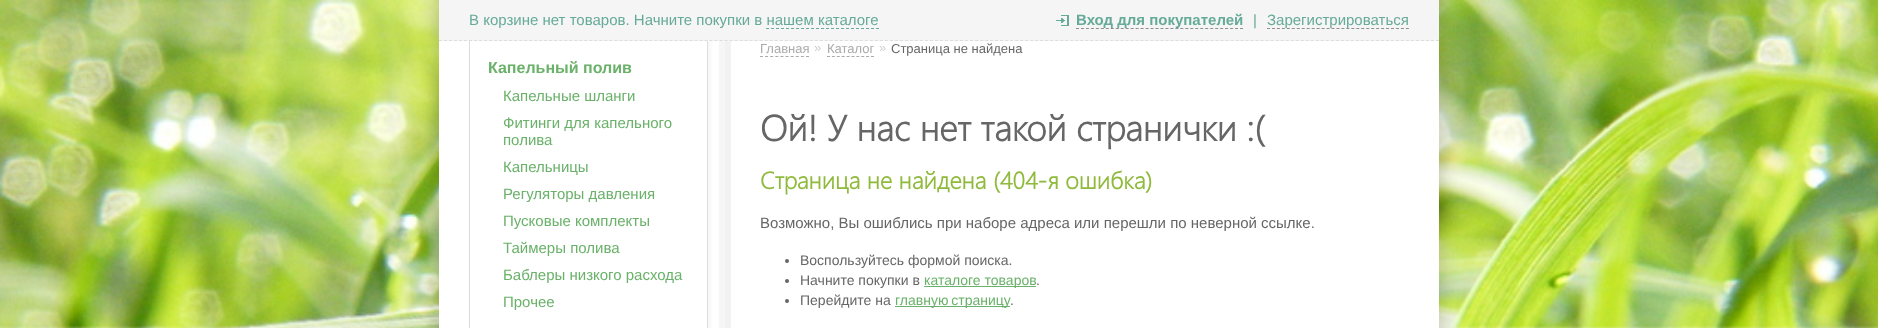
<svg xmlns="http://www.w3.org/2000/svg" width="1878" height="328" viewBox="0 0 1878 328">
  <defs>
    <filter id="blur1" x="-50%" y="-200%" width="200%" height="500%"><feGaussianBlur stdDeviation="7.5"/></filter>
    <clipPath id="clip1"><path d="M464 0H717V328H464ZM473-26H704C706-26 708-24 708-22V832C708 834 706 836 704 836H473C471 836 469 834 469 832V-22C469-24 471-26 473-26Z" clip-rule="evenodd"/></clipPath>
    <filter id="blur2" x="-50%" y="-200%" width="200%" height="500%"><feGaussianBlur stdDeviation="2"/></filter>
  </defs>
  <rect width="100%" height="100%" fill="#ffffff"/>
  <image x="0" y="0" width="1878" height="328" href="img1.png"/>
  <rect x="434" y="-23" width="1010" height="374" fill="#000000" fill-opacity="0.15" filter="url(#blur1)"/>
  <rect x="439" y="41" width="1000" height="287" fill="#ffffff"/>
  <g clip-path="url(#clip1)">
    <rect x="471" y="-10" width="239" height="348" rx="4" fill="#f5f5f5" filter="url(#blur2)"/>
  </g>
  <rect x="469.5" y="-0.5" width="238" height="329" fill="none" stroke="#dddddd"/>
  <rect x="439" y="0" width="1000" height="41" fill="#f5f5f5"/>
  <path d="M439 40.5H1439" fill="none" stroke="#dddddd" stroke-dasharray="3 2.01"/>
  <text x="469" y="25" font-family="Liberation Sans" font-size="15" fill="#66aa99">В корзине нет товаров. Начните покупки в нашем каталоге</text>
  <path d="M766 28.5H879" fill="none" stroke="#66aa99" stroke-dasharray="3 2"/>
  <image x="1056" y="15" width="13" height="11" href="img2.png"/>
  <path d="M1076 28.5H1243" fill="none" stroke="#8f8f8f" stroke-dasharray="3 1.97"/>
  <text x="1076" y="25" font-family="Liberation Sans" font-size="15" font-weight="bold" fill="#66aa99">Вход для покупателей</text>
  <text x="1253" y="25" font-family="Liberation Sans" font-size="15" fill="#66aa99">|</text>
  <path d="M1267 28.5H1409" fill="none" stroke="#8f8f8f" stroke-dasharray="3 1.96"/>
  <text x="1267" y="25" font-family="Liberation Sans" font-size="15" fill="#66aa99">Зарегистрироваться</text>
  <image x="719" y="41" width="12" height="287" href="img3.png"/>
  <text x="488" y="73" font-family="Liberation Sans" font-size="16" font-weight="bold" fill="#6ab16a">Капельный полив</text>
  <text x="503" y="101" font-family="Liberation Sans" font-size="15" fill="#6ab16a">Капельные шланги</text>
  <text x="503" y="128" font-family="Liberation Sans" font-size="15" fill="#6ab16a">Фитинги для капельного</text>
  <text x="503" y="145" font-family="Liberation Sans" font-size="15" fill="#6ab16a">полива</text>
  <text x="503" y="172" font-family="Liberation Sans" font-size="15" fill="#6ab16a">Капельницы</text>
  <text x="503" y="199" font-family="Liberation Sans" font-size="15" fill="#6ab16a">Регуляторы давления</text>
  <text x="503" y="226" font-family="Liberation Sans" font-size="15" fill="#6ab16a">Пусковые комплекты</text>
  <text x="503" y="253" font-family="Liberation Sans" font-size="15" fill="#6ab16a">Таймеры полива</text>
  <text x="503" y="280" font-family="Liberation Sans" font-size="15" fill="#6ab16a">Баблеры низкого расхода</text>
  <text x="503" y="307" font-family="Liberation Sans" font-size="15" fill="#6ab16a">Прочее</text>
  <text x="760" y="53" font-family="Liberation Sans" font-size="13" fill="#aaaaaa">Главная</text>
  <path d="M760 56.5H809" fill="none" stroke="#aaaaaa" stroke-dasharray="3 2.11"/>
  <text x="814" y="52" font-family="Liberation Sans" font-size="13" fill="#cccccc">»</text>
  <text x="827" y="53" font-family="Liberation Sans" font-size="13" fill="#aaaaaa">Каталог</text>
  <path d="M827 56.5H874" fill="none" stroke="#aaaaaa" stroke-dasharray="3 1.89"/>
  <text x="879" y="52" font-family="Liberation Sans" font-size="13" fill="#cccccc">»</text>
  <text x="891" y="53" font-family="Liberation Sans" font-size="13" fill="#666666">Страница не найдена</text>
  <text x="760" y="141" font-family="Segoe UI" font-size="36" font-weight="bold" fill="#666666">Ой! У нас нет такой странички :(</text>
  <text x="760" y="189" font-family="Segoe UI" font-size="24" font-weight="bold" fill="#8fba3c">Страница не найдена (404-я ошибка)</text>
  <text x="760" y="228" font-family="Liberation Sans" font-size="15" fill="#666666">Возможно, Вы ошиблись при наборе адреса или перешли по неверной ссылке.</text>
  <circle cx="787" cy="261" r="2" fill="#666666"/>
  <text x="800" y="265" font-family="Liberation Sans" font-size="14" fill="#666666">Воспользуйтесь формой поиска.</text>
  <circle cx="787" cy="281" r="2" fill="#666666"/>
  <text x="800" y="285" font-family="Liberation Sans" font-size="14" fill="#666666">Начните покупки в</text>
  <rect x="924" y="286" width="112" height="1" fill="#6ab16a"/>
  <text x="924" y="285" font-family="Liberation Sans" font-size="14" fill="#6ab16a">каталоге товаров</text>
  <text x="1036" y="285" font-family="Liberation Sans" font-size="14" fill="#666666">.</text>
  <circle cx="787" cy="301" r="2" fill="#666666"/>
  <text x="800" y="305" font-family="Liberation Sans" font-size="14" fill="#666666">Перейдите на</text>
  <rect x="895" y="306" width="115" height="1" fill="#6ab16a"/>
  <text x="895" y="305" word-spacing="-1" font-family="Liberation Sans" font-size="14" fill="#6ab16a">главную страницу</text>
  <text x="1010" y="305" font-family="Liberation Sans" font-size="14" fill="#666666">.</text>
</svg>
